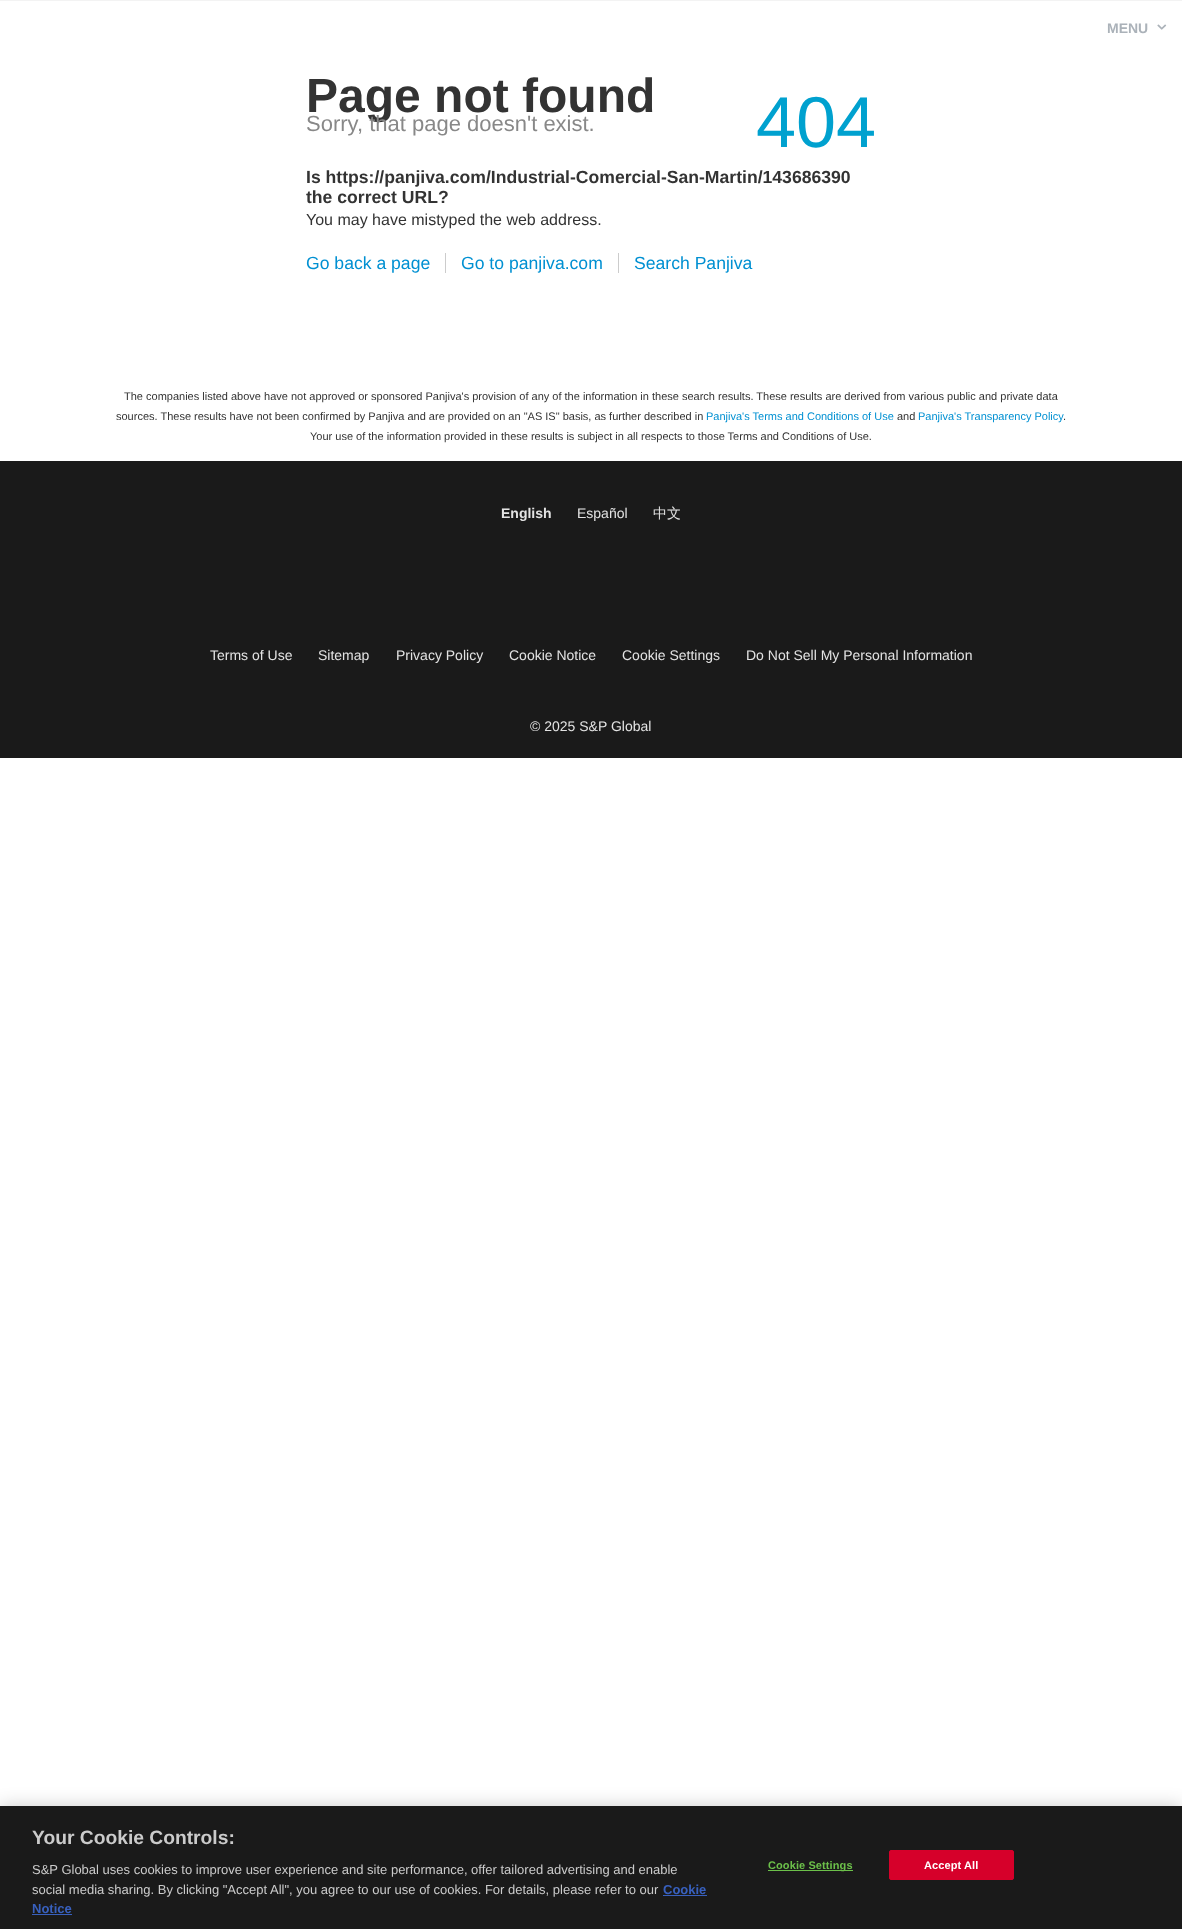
<svg xmlns="http://www.w3.org/2000/svg" width="1182" height="1929" viewBox="0 0 1182 1929">
  <defs>
    <filter id="blur1" x="-50%" y="-200%" width="200%" height="500%"><feGaussianBlur stdDeviation="9"/></filter>
  </defs>
  <rect width="100%" height="100%" fill="#ffffff"/>
  <rect x="0" y="0" width="1182" height="1" fill="#f3f3f3"/>
  <text x="1107" y="33" font-family="Liberation Sans" font-size="14" font-weight="bold" fill="#abb2b9">MENU</text>
  <image x="1157" y="24" width="10" height="6" href="img1.png"/>
  <text x="306" y="112" font-family="Liberation Sans" font-size="48" font-weight="bold" fill="#333333">Page not found</text>
  <text x="756" y="147" font-family="Liberation Sans" font-size="72" fill="#00a1cf">404</text>
  <text x="306" y="131" font-family="Liberation Sans" font-size="22" fill="#888888">Sorry, that page doesn't exist.</text>
  <text x="306" y="183" font-family="Liberation Sans" font-size="17.6" font-weight="bold" fill="#333333">Is https://panjiva.com/Industrial-Comercial-San-Martin/143686390</text>
  <text x="306" y="203" font-family="Liberation Sans" font-size="17.6" font-weight="bold" fill="#333333">the correct URL?</text>
  <text x="306" y="225" font-family="Liberation Sans" font-size="16" fill="#333333">You may have mistyped the web address.</text>
  <rect x="445" y="253" width="1" height="20" fill="#cccccc"/>
  <text x="306" y="269" font-family="Liberation Sans" font-size="17.6" fill="#0090d2">Go back a page</text>
  <rect x="618" y="253" width="1" height="20" fill="#cccccc"/>
  <text x="461" y="269" font-family="Liberation Sans" font-size="17.6" fill="#0090d2">Go to panjiva.com</text>
  <text x="634" y="269" font-family="Liberation Sans" font-size="17.6" fill="#0090d2">Search Panjiva</text>
  <text x="124" y="400" font-family="Liberation Sans" font-size="11" fill="#333333">The companies listed above have not approved or sponsored Panjiva's provision of any of the information in these search results. These results are derived from various public and private data</text>
  <text x="116" y="420" font-family="Liberation Sans" font-size="11" fill="#333333">sources. These results have not been confirmed by Panjiva and are provided on an "AS IS" basis, as further described in</text>
  <text x="706" y="420" font-family="Liberation Sans" font-size="11" fill="#0090d2">Panjiva's Terms and Conditions of Use</text>
  <text x="897" y="420" font-family="Liberation Sans" font-size="11" fill="#333333">and</text>
  <text x="918" y="420" font-family="Liberation Sans" font-size="11" fill="#0090d2">Panjiva's Transparency Policy</text>
  <text x="1063" y="420" font-family="Liberation Sans" font-size="11" fill="#333333">.</text>
  <text x="310" y="440" font-family="Liberation Sans" font-size="11" fill="#333333">Your use of the information provided in these results is subject in all respects to those Terms and Conditions of Use.</text>
  <rect x="0" y="461" width="1182" height="297" fill="#1a1a1a"/>
  <text x="501" y="518" font-family="Liberation Sans" font-size="14" font-weight="bold" fill="#e3e3e3">English</text>
  <text x="577" y="518" font-family="Liberation Sans" font-size="14" fill="#e3e3e3">Español</text>
  <text x="653" y="518" font-family="WenQuanYi Zen Hei" font-size="14" font-weight="500" fill="#e3e3e3">中文</text>
  <text x="210" y="660" font-family="Liberation Sans" font-size="14" fill="#e3e3e3">Terms of Use</text>
  <text x="318" y="660" font-family="Liberation Sans" font-size="14" fill="#e3e3e3">Sitemap</text>
  <text x="396" y="660" font-family="Liberation Sans" font-size="14" fill="#e3e3e3">Privacy Policy</text>
  <text x="509" y="660" font-family="Liberation Sans" font-size="14" fill="#e3e3e3">Cookie Notice</text>
  <text x="622" y="660" font-family="Liberation Sans" font-size="14" fill="#e3e3e3">Cookie Settings</text>
  <text x="746" y="660" font-family="Liberation Sans" font-size="14" fill="#e3e3e3">Do Not Sell My Personal Information</text>
  <text x="530" y="731" font-family="Liberation Sans" font-size="14" fill="#e3e3e3">© 2025 S&amp;P Global</text>
  <rect x="0" y="1806" width="1182" height="123" fill="#000000" fill-opacity="0.2" filter="url(#blur1)"/>
  <rect x="0" y="1806" width="1182" height="123" fill="#1a1a1a"/>
  <text x="32" y="1844" font-family="Liberation Sans" font-size="19.25" font-weight="bold" fill="#cbcbcb">Your Cookie Controls:</text>
  <text x="32" y="1874" font-family="Liberation Sans" font-size="13" fill="#cbcbcb">S&amp;P Global uses cookies to improve user experience and site performance, offer tailored advertising and enable</text>
  <text x="32" y="1894" font-family="Liberation Sans" font-size="13" fill="#cbcbcb">social media sharing. By clicking "Accept All", you agree to our use of cookies. For details, please refer to our</text>
  <text x="663" y="1894" font-family="Liberation Sans" font-size="13" font-weight="bold" fill="#3860be">Cookie</text>
  <rect x="663" y="1895" width="44" height="1" fill="#3860be"/>
  <text x="32" y="1913" font-family="Liberation Sans" font-size="13" font-weight="bold" fill="#3860be">Notice</text>
  <rect x="32" y="1914" width="40" height="1" fill="#3860be"/>
  <rect x="768" y="1870" width="85" height="1" fill="#6cc04a"/>
  <text x="768" y="1869" font-family="Liberation Sans" font-size="11" font-weight="bold" letter-spacing="0.1" fill="#6cc04a">Cookie Settings</text>
  <rect x="889.5" y="1850.5" width="124" height="29" rx="1.5" fill="#d6002a" stroke="#d6002a"/>
  <text x="924" y="1869" font-family="Liberation Sans" font-size="11" font-weight="bold" letter-spacing="0.1" fill="#ffffff">Accept All</text>
</svg>
